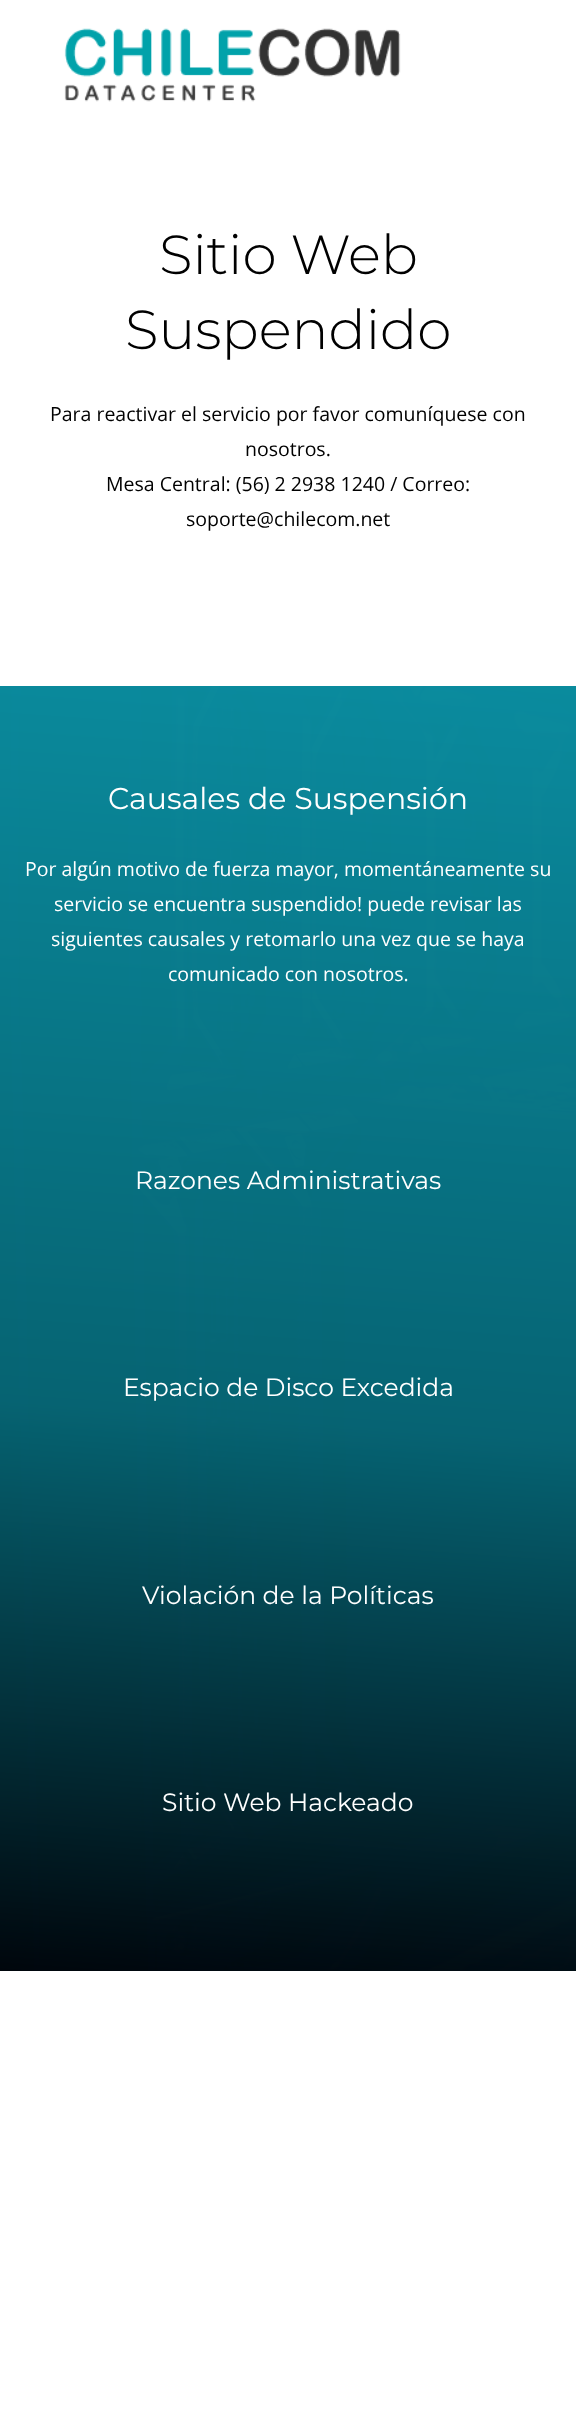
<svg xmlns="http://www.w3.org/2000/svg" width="576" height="2431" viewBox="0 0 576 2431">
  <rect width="100%" height="100%" fill="#ffffff"/>
  <image x="64" y="28" width="337" height="74" href="img1.png"/>
  <text x="159" y="274" font-family="Montserrat" font-size="55" font-weight="300" fill="#000000">Sitio Web</text>
  <text x="125" y="349" font-family="Montserrat" font-size="55" font-weight="300" fill="#000000">Suspendido</text>
  <text x="50" y="421" font-family="Open Sans" font-size="19.5" fill="#000000">Para reactivar el servicio por favor comuníquese con</text>
  <text x="245" y="456" font-family="Open Sans" font-size="19.5" fill="#000000">nosotros.</text>
  <text x="106" y="491" font-family="Open Sans" font-size="19.5" fill="#000000">Mesa Central: (56) 2 2938 1240 / Correo:</text>
  <text x="186" y="526" font-family="Open Sans" font-size="19.5" fill="#000000">soporte@chilecom.net</text>
  <image x="0" y="686" width="576" height="1285" href="img2.png"/>
  <text x="108" y="809" font-family="Montserrat" font-size="30" fill="#ffffff">Causales de Suspensión</text>
  <text x="25" y="876" font-family="Open Sans" font-size="19.5" fill="#ffffff">Por algún motivo de fuerza mayor, momentáneamente su</text>
  <text x="54" y="911" font-family="Open Sans" font-size="19.5" fill="#ffffff">servicio se encuentra suspendido! puede revisar las</text>
  <text x="51" y="946" font-family="Open Sans" font-size="19.5" fill="#ffffff">siguientes causales y retomarlo una vez que se haya</text>
  <text x="168" y="981" font-family="Open Sans" font-size="19.5" fill="#ffffff">comunicado con nosotros.</text>
  <text x="135" y="1189" font-family="Montserrat" font-size="25" fill="#ffffff">Razones Administrativas</text>
  <text x="123" y="1396" font-family="Montserrat" font-size="25" fill="#ffffff">Espacio de Disco Excedida</text>
  <text x="142" y="1604" font-family="Montserrat" font-size="25" fill="#ffffff">Violación de la Políticas</text>
  <text x="162" y="1811" font-family="Montserrat" font-size="25" fill="#ffffff">Sitio Web Hackeado</text>
</svg>
